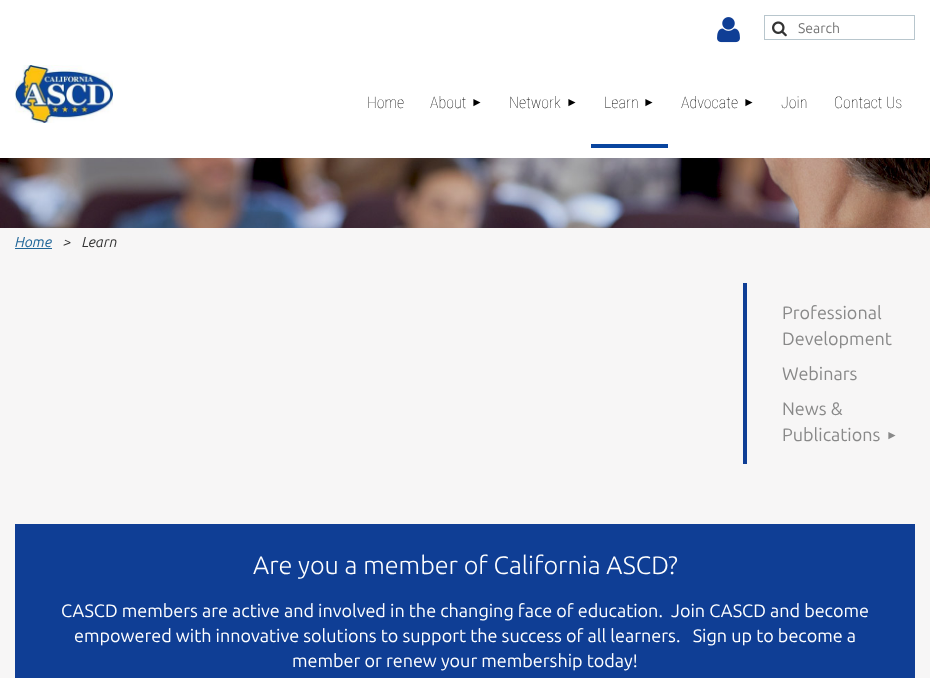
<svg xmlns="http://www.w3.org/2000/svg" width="930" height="678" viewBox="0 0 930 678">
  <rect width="100%" height="100%" fill="#ffffff"/>
  <image x="717" y="17" width="23" height="26" href="img1.png"/>
  <rect x="764.5" y="15.5" width="150" height="24" fill="none" stroke="#b8c6cd"/>
  <image x="772" y="21" width="15" height="16" href="img2.png"/>
  <text x="798" y="33" font-family="Ubuntu" font-size="14" fill="#757575">Search</text>
  <image x="15" y="65" width="98" height="58" href="img3.png"/>
  <text x="367" y="108" font-family="Roboto Condensed" font-size="16" font-weight="100" fill="#000000">Home</text>
  <text x="430" y="108" font-family="Roboto Condensed" font-size="16" font-weight="100" fill="#000000">About</text>
  <text x="471" y="106" font-family="Liberation Sans" font-size="12" fill="#000000">►</text>
  <text x="509" y="108" font-family="Roboto Condensed" font-size="16" font-weight="100" fill="#000000">Network</text>
  <text x="566" y="106" font-family="Liberation Sans" font-size="12" fill="#000000">►</text>
  <rect x="591" y="144" width="77" height="4" fill="#09459f"/>
  <text x="604" y="108" font-family="Roboto Condensed" font-size="16" font-weight="100" fill="#000000">Learn</text>
  <text x="643" y="106" font-family="Liberation Sans" font-size="12" fill="#000000">►</text>
  <text x="681" y="108" font-family="Roboto Condensed" font-size="16" font-weight="100" fill="#000000">Advocate</text>
  <text x="743" y="106" font-family="Liberation Sans" font-size="12" fill="#000000">►</text>
  <text x="781" y="108" font-family="Roboto Condensed" font-size="16" font-weight="100" fill="#000000">Join</text>
  <text x="834" y="108" font-family="Roboto Condensed" font-size="16" font-weight="100" fill="#000000">Contact Us</text>
  <image x="0" y="158" width="930" height="70" href="img4.png"/>
  <rect x="0" y="228" width="930" height="450" fill="#f7f6f6"/>
  <text x="15" y="247" font-family="Ubuntu" font-size="14.5" font-style="italic" fill="#206699">Home</text>
  <rect x="15" y="248" width="37" height="1" fill="#206699"/>
  <text x="63" y="247" font-family="Ubuntu" font-size="14.5" font-style="italic" fill="#333333">&gt;</text>
  <text x="82" y="247" font-family="Ubuntu" font-size="14.5" font-style="italic" fill="#333333">Learn</text>
  <rect x="743" y="283" width="4" height="181" fill="#0f3e95"/>
  <text x="782" y="319" font-family="Ubuntu" font-size="18" fill="#898989">Professional</text>
  <text x="782" y="345" font-family="Ubuntu" font-size="18" fill="#898989">Development</text>
  <text x="782" y="380" font-family="Ubuntu" font-size="18" fill="#898989">Webinars</text>
  <text x="782" y="415" font-family="Ubuntu" font-size="18" fill="#898989">News &amp;</text>
  <text x="782" y="441" font-family="Ubuntu" font-size="18" fill="#898989">Publications</text>
  <text x="886" y="439" font-family="Liberation Sans" font-size="12" fill="#898989">►</text>
  <rect x="15" y="524" width="900" height="154" fill="#0f3e95"/>
  <text x="253" y="574" font-family="Ubuntu" font-size="25.25" font-weight="300" fill="#ffffff">Are you a member of California ASCD?</text>
  <text x="61" y="617" font-family="Ubuntu" font-size="18" fill="#ffffff" xml:space="preserve">CASCD members are active and involved in the changing face of education.  Join CASCD and become</text>
  <text x="74" y="642" font-family="Ubuntu" font-size="18" fill="#ffffff" xml:space="preserve">empowered with innovative solutions to support the success of all learners.   Sign up to become a</text>
  <text x="292" y="667" font-family="Ubuntu" font-size="18" fill="#ffffff">member or renew your membership today!</text>
</svg>
